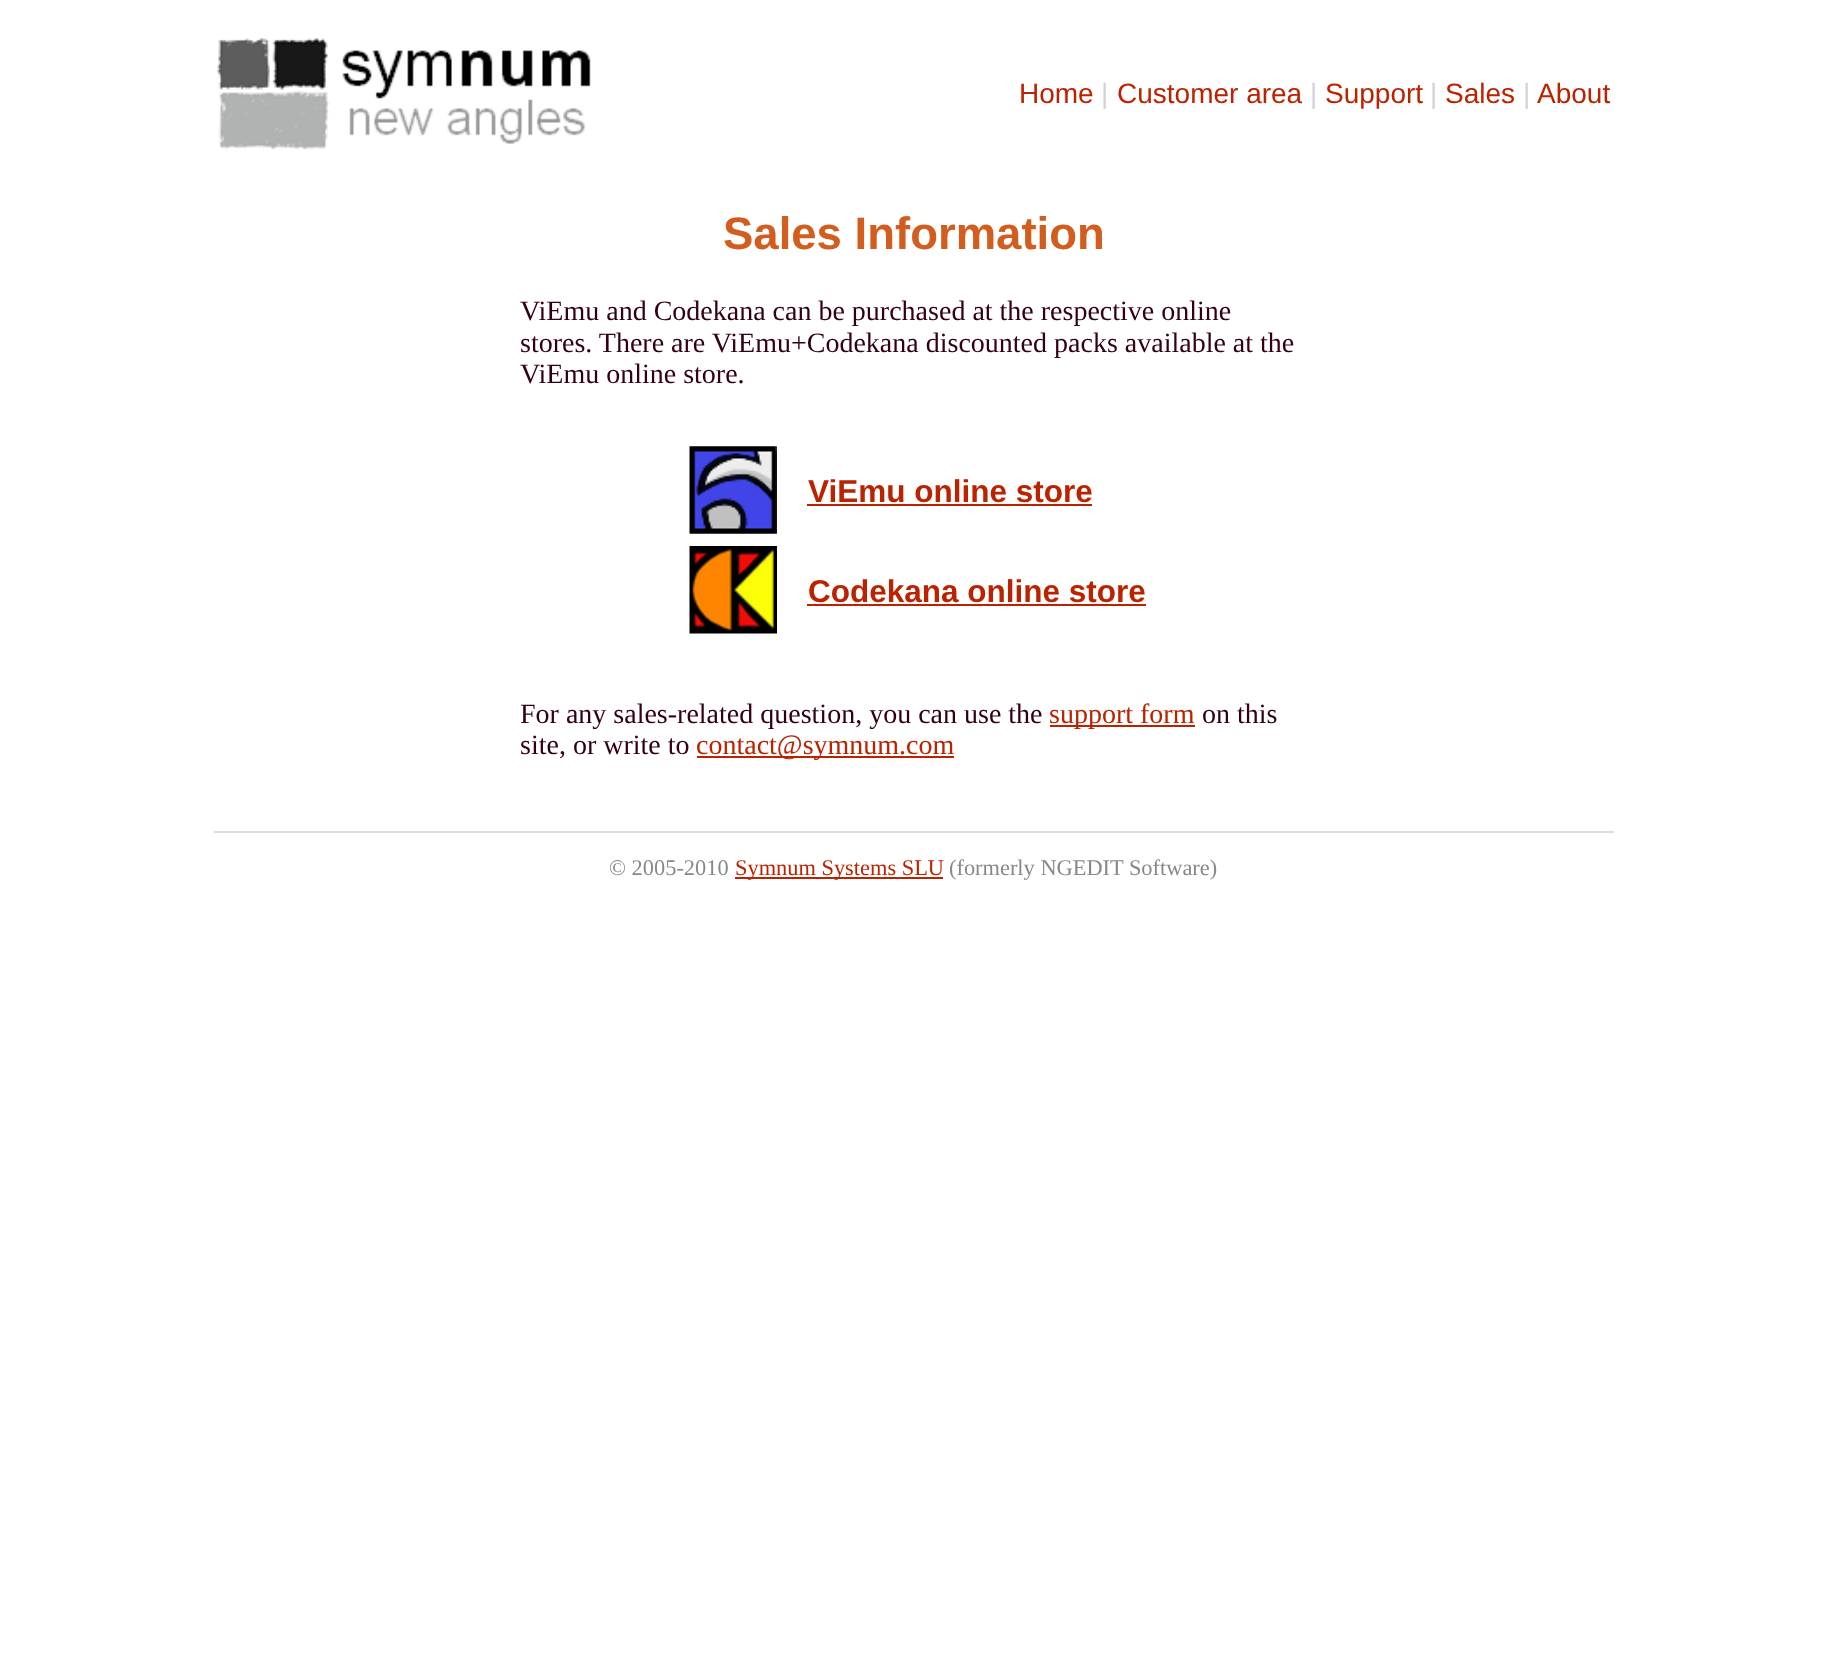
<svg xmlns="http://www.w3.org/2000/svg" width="1826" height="1678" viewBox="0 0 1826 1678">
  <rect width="100%" height="100%" fill="#ffffff"/>
  <image x="217" y="38" width="374" height="112" href="img1.png"/>
  <text x="1019" y="103" font-family="Liberation Sans" font-size="28" fill="#bb2200">Home</text>
  <text x="1101" y="103" font-family="Liberation Sans" font-size="28" fill="#d3d3d3">|</text>
  <text x="1117" y="103" font-family="Liberation Sans" font-size="28" fill="#bb2200">Customer area</text>
  <text x="1310" y="103" font-family="Liberation Sans" font-size="28" fill="#d3d3d3">|</text>
  <text x="1325" y="103" font-family="Liberation Sans" font-size="28" fill="#bb2200">Support</text>
  <text x="1430" y="103" font-family="Liberation Sans" font-size="28" fill="#d3d3d3">|</text>
  <text x="1445" y="103" font-family="Liberation Sans" font-size="28" fill="#bb2200">Sales</text>
  <text x="1523" y="103" font-family="Liberation Sans" font-size="28" fill="#d3d3d3">|</text>
  <text x="1537" y="103" font-family="Liberation Sans" font-size="28" fill="#bb2200">About</text>
  <text x="723" y="249" font-family="Liberation Sans" font-size="45.5" font-weight="bold" fill="#d15e1f">Sales Information</text>
  <text x="520" y="320" font-family="Liberation Serif" font-size="28" fill="#330011">ViEmu and Codekana can be purchased at the respective online</text>
  <text x="520" y="352" font-family="Liberation Serif" font-size="28" fill="#330011">stores. There are ViEmu+Codekana discounted packs available at the</text>
  <text x="520" y="383" font-family="Liberation Serif" font-size="28" fill="#330011">ViEmu online store.</text>
  <image x="689" y="446" width="88" height="88" href="img2.png"/>
  <text x="808" y="502" font-family="Liberation Sans" font-size="31.5" font-weight="bold" fill="#bb2200">ViEmu online store</text>
  <rect x="807" y="504" width="285" height="2" fill="#bb2200"/>
  <image x="689" y="546" width="88" height="88" href="img3.png"/>
  <text x="808" y="602" font-family="Liberation Sans" font-size="31.5" font-weight="bold" fill="#bb2200">Codekana online store</text>
  <rect x="807" y="604" width="339" height="2" fill="#bb2200"/>
  <text x="520" y="723" font-family="Liberation Serif" font-size="28" fill="#330011">For any sales-related question, you can use the</text>
  <rect x="1050" y="725" width="145" height="2" fill="#bb2200"/>
  <text x="1049" y="723" font-family="Liberation Serif" font-size="28" fill="#bb2200">support form</text>
  <text x="1202" y="723" font-family="Liberation Serif" font-size="28" fill="#330011">on this</text>
  <text x="520" y="754" font-family="Liberation Serif" font-size="28" fill="#330011">site, or write to</text>
  <rect x="697" y="756" width="257" height="2" fill="#bb2200"/>
  <text x="696" y="754" font-family="Liberation Serif" font-size="28" fill="#bb2200">contact@symnum.com</text>
  <rect x="214" y="831" width="1400" height="2" fill="#dddddd"/>
  <text x="609" y="875" font-family="Liberation Serif" font-size="22.4" fill="#888888">© 2005-2010</text>
  <rect x="735" y="877" width="208" height="2" fill="#bb2200"/>
  <text x="735" y="875" font-family="Liberation Serif" font-size="22.4" fill="#bb2200">Symnum Systems SLU</text>
  <text x="949" y="875" font-family="Liberation Serif" font-size="22.4" fill="#888888">(formerly NGEDIT Software)</text>
</svg>
